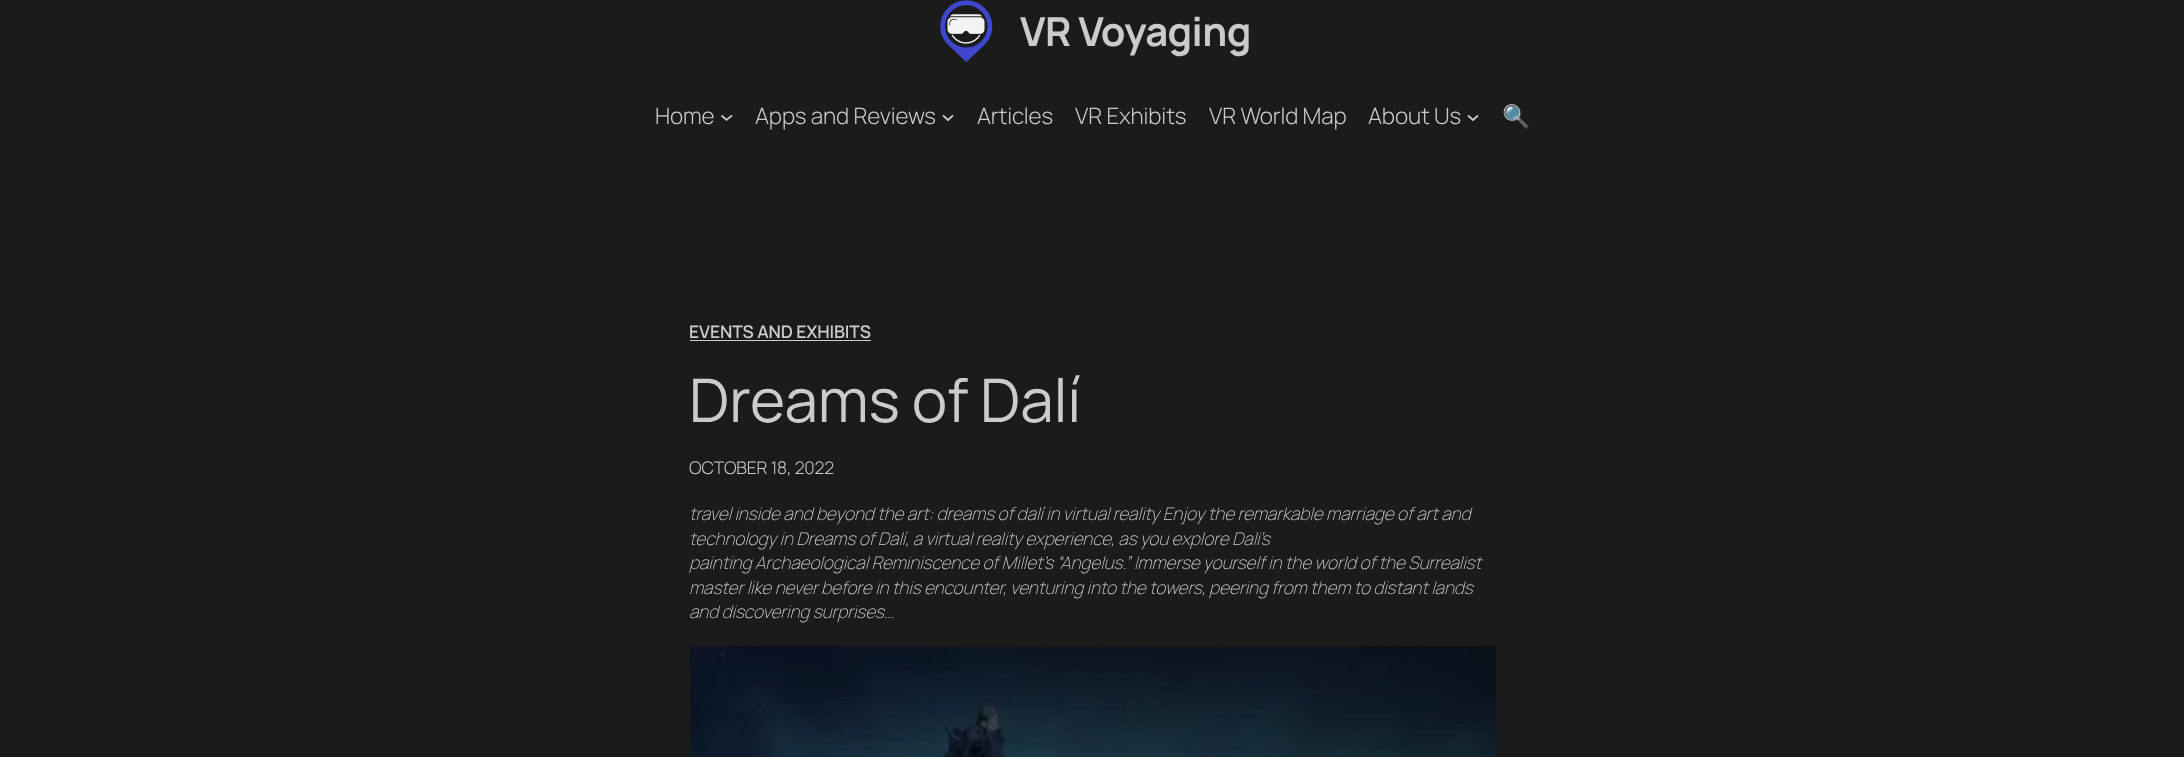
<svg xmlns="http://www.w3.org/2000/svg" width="2184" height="757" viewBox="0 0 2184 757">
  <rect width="100%" height="100%" fill="#1b1b1b"/>
  <image x="940" y="0" width="53" height="63" href="img1.png"/>
  <text x="1020" y="46" font-family="Manrope" font-size="40" font-weight="bold" letter-spacing="-0.6" fill="#cbcbcb">VR Voyaging</text>
  <text x="655" y="124" font-family="Manrope" font-size="22.5" font-weight="300" letter-spacing="-0.12" fill="#cbcbcb">Home</text>
  <path d="M721.5 115.5L726.5 120L732 115.5" fill="none" stroke="#cbcbcb" stroke-width="1.7"/>
  <text x="755" y="124" font-family="Manrope" font-size="22.5" font-weight="300" letter-spacing="-0.12" fill="#cbcbcb">Apps and Reviews</text>
  <path d="M943 115.5L948 120L953 115.5" fill="none" stroke="#cbcbcb" stroke-width="1.7"/>
  <text x="977" y="124" font-family="Manrope" font-size="22.5" font-weight="300" letter-spacing="-0.12" fill="#cbcbcb">Articles</text>
  <text x="1075" y="124" font-family="Manrope" font-size="22.5" font-weight="300" letter-spacing="-0.12" fill="#cbcbcb">VR Exhibits</text>
  <text x="1209" y="124" font-family="Manrope" font-size="22.5" font-weight="300" letter-spacing="-0.12" fill="#cbcbcb">VR World Map</text>
  <text x="1368" y="124" font-family="Manrope" font-size="22.5" font-weight="300" letter-spacing="-0.12" fill="#cbcbcb">About Us</text>
  <path d="M1468 115.5L1473 120L1478 115.5" fill="none" stroke="#cbcbcb" stroke-width="1.7"/>
  <text x="1502" y="124" font-family="Noto Color Emoji" font-size="22.5" letter-spacing="-0.12" fill="#cbcbcb">🔍</text>
  <text x="689" y="338" font-family="Manrope" font-size="17.5" font-weight="600" letter-spacing="-0.12" fill="#cbcbcb">EVENTS AND EXHIBITS</text>
  <rect x="690" y="340" width="181" height="1" fill="#cbcbcb"/>
  <text x="689" y="422" font-family="Manrope" font-size="60" letter-spacing="-0.12" fill="#cbcbcb">Dreams of Dalí</text>
  <text x="689" y="474" font-family="Manrope" font-size="17.5" font-weight="300" letter-spacing="-0.12" fill="#cbcbcb">OCTOBER 18, 2022</text>
  <text x="689" y="520" font-family="Manrope" font-size="17.5" font-weight="200" font-style="italic" letter-spacing="-0.12" fill="#cbcbcb">travel inside and beyond the art: dreams of dalí in virtual reality Enjoy the remarkable marriage of art and</text>
  <text x="689" y="545" font-family="Manrope" font-size="17.5" font-weight="200" font-style="italic" letter-spacing="-0.12" fill="#cbcbcb">technology in Dreams of Dalí, a virtual reality experience, as you explore Dali’s</text>
  <text x="689" y="569" font-family="Manrope" font-size="17.5" font-weight="200" font-style="italic" letter-spacing="-0.12" fill="#cbcbcb">painting Archaeological Reminiscence of Millet’s “Angelus.” Immerse yourself in the world of the Surrealist</text>
  <text x="689" y="594" font-family="Manrope" font-size="17.5" font-weight="200" font-style="italic" letter-spacing="-0.12" fill="#cbcbcb">master like never before in this encounter, venturing into the towers, peering from them to distant lands</text>
  <text x="689" y="618" font-family="Manrope" font-size="17.5" font-weight="200" font-style="italic" letter-spacing="-0.12" fill="#cbcbcb">and discovering surprises…</text>
  <image x="690" y="646" width="807" height="111" href="img2.png"/>
</svg>
